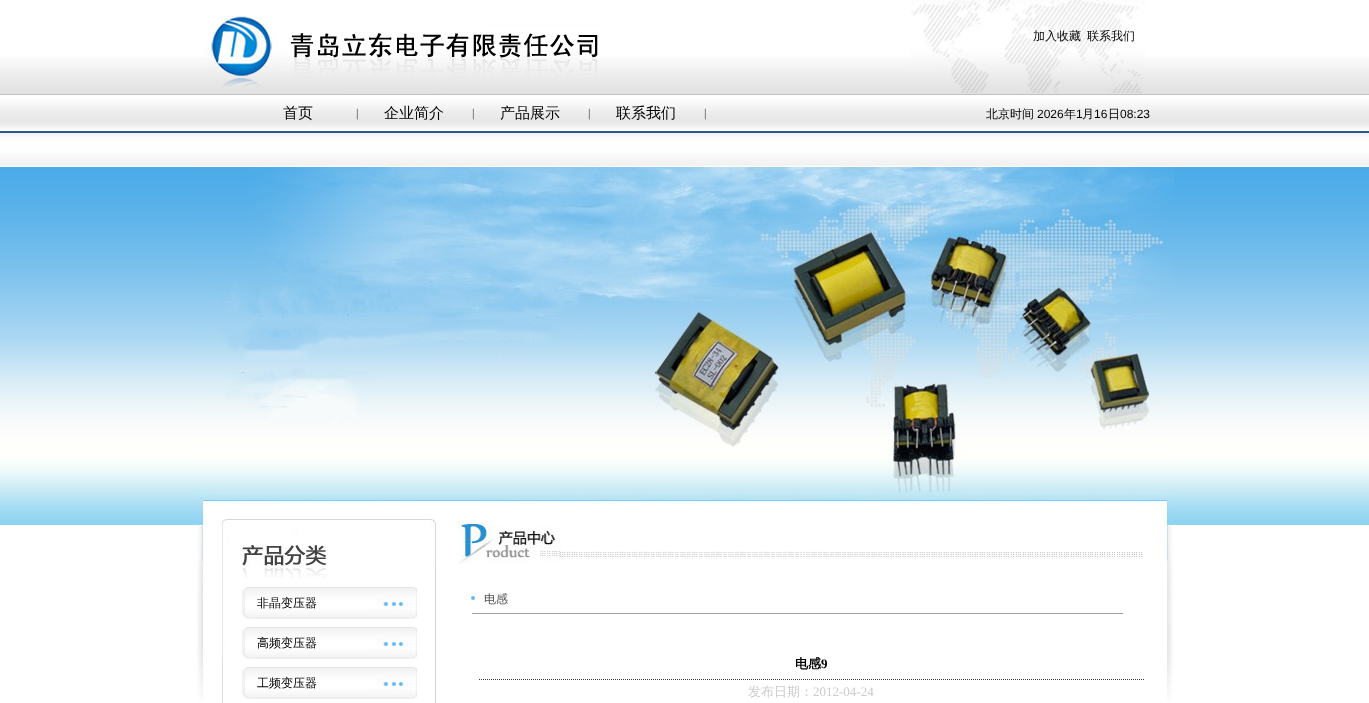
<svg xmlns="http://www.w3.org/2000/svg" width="1369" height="703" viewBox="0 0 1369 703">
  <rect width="100%" height="100%" fill="#ffffff"/>
  <image x="0" y="57" width="1369" height="468" href="img1.png"/>
  <image x="204" y="16" width="394" height="78" href="img2.png"/>
  <image x="910" y="0" width="235" height="93" href="img3.png"/>
  <text x="1033" y="40" font-family="WenQuanYi Zen Hei" font-size="12" font-weight="500" fill="#000000">加入收藏</text>
  <text x="1087" y="40" font-family="WenQuanYi Zen Hei" font-size="12" font-weight="500" fill="#000000">联系我们</text>
  <text x="283" y="118" font-family="WenQuanYi Zen Hei" font-size="15" font-weight="500" fill="#000000">首页</text>
  <text x="356" y="117" font-family="Liberation Serif" font-size="12" fill="#333333">|</text>
  <text x="384" y="118" font-family="WenQuanYi Zen Hei" font-size="15" font-weight="500" fill="#000000">企业简介</text>
  <text x="472" y="117" font-family="Liberation Serif" font-size="12" fill="#333333">|</text>
  <text x="500" y="118" font-family="WenQuanYi Zen Hei" font-size="15" font-weight="500" fill="#000000">产品展示</text>
  <text x="588" y="117" font-family="Liberation Serif" font-size="12" fill="#333333">|</text>
  <text x="616" y="118" font-family="WenQuanYi Zen Hei" font-size="15" font-weight="500" fill="#000000">联系我们</text>
  <text x="704" y="117" font-family="Liberation Serif" font-size="12" fill="#333333">|</text>
  <text x="986" y="118" font-family="WenQuanYi Zen Hei" font-size="12" font-weight="500" fill="#000000">北京时间</text>
  <text x="1037" y="118" font-family="Liberation Sans" font-size="12" fill="#000000">2026</text>
  <text x="1064" y="118" font-family="WenQuanYi Zen Hei" font-size="12" font-weight="500" fill="#000000">年</text>
  <text x="1076" y="118" font-family="Liberation Sans" font-size="12" fill="#000000">1</text>
  <text x="1082" y="118" font-family="WenQuanYi Zen Hei" font-size="12" font-weight="500" fill="#000000">月</text>
  <text x="1094" y="118" font-family="Liberation Sans" font-size="12" fill="#000000">16</text>
  <text x="1108" y="118" font-family="WenQuanYi Zen Hei" font-size="12" font-weight="500" fill="#000000">日</text>
  <text x="1120" y="118" font-family="Liberation Sans" font-size="12" fill="#000000">08:23</text>
  <image x="196" y="167" width="978" height="332" href="img4.png"/>
  <image x="196" y="499" width="978" height="202" href="img5.png"/>
  <image x="222" y="519" width="214" height="184" href="img6.png"/>
  <image x="225" y="522" width="102" height="56" href="img7.png"/>
  <image x="242" y="587" width="175" height="32" href="img8.png"/>
  <text x="257" y="607" font-family="WenQuanYi Zen Hei" font-size="12" font-weight="500" fill="#000000">非晶变压器</text>
  <image x="242" y="627" width="175" height="32" href="img8.png"/>
  <text x="257" y="647" font-family="WenQuanYi Zen Hei" font-size="12" font-weight="500" fill="#000000">高频变压器</text>
  <image x="242" y="667" width="175" height="32" href="img8.png"/>
  <text x="257" y="687" font-family="WenQuanYi Zen Hei" font-size="12" font-weight="500" fill="#000000">工频变压器</text>
  <image x="458" y="519" width="684" height="45" href="img9.png"/>
  <image x="471" y="593" width="652" height="21" href="img10.png"/>
  <text x="484" y="603" font-family="WenQuanYi Zen Hei" font-size="12" font-weight="500" fill="#515151">电感</text>
  <path d="M479 679.5H1144" fill="none" stroke="#3d3d3d" stroke-dasharray="1 1"/>
  <text x="795" y="668" font-family="WenQuanYi Zen Hei" font-size="13" font-weight="bold" fill="#000000">电感</text>
  <text x="821" y="668" font-family="Liberation Serif" font-size="13" font-weight="bold" fill="#000000">9</text>
  <text x="748" y="696" font-family="WenQuanYi Zen Hei" font-size="13" font-weight="500" fill="#cccccc">发布日期：</text>
  <text x="813" y="696" font-family="Liberation Serif" font-size="13" fill="#cccccc">2012-04-24</text>
</svg>
